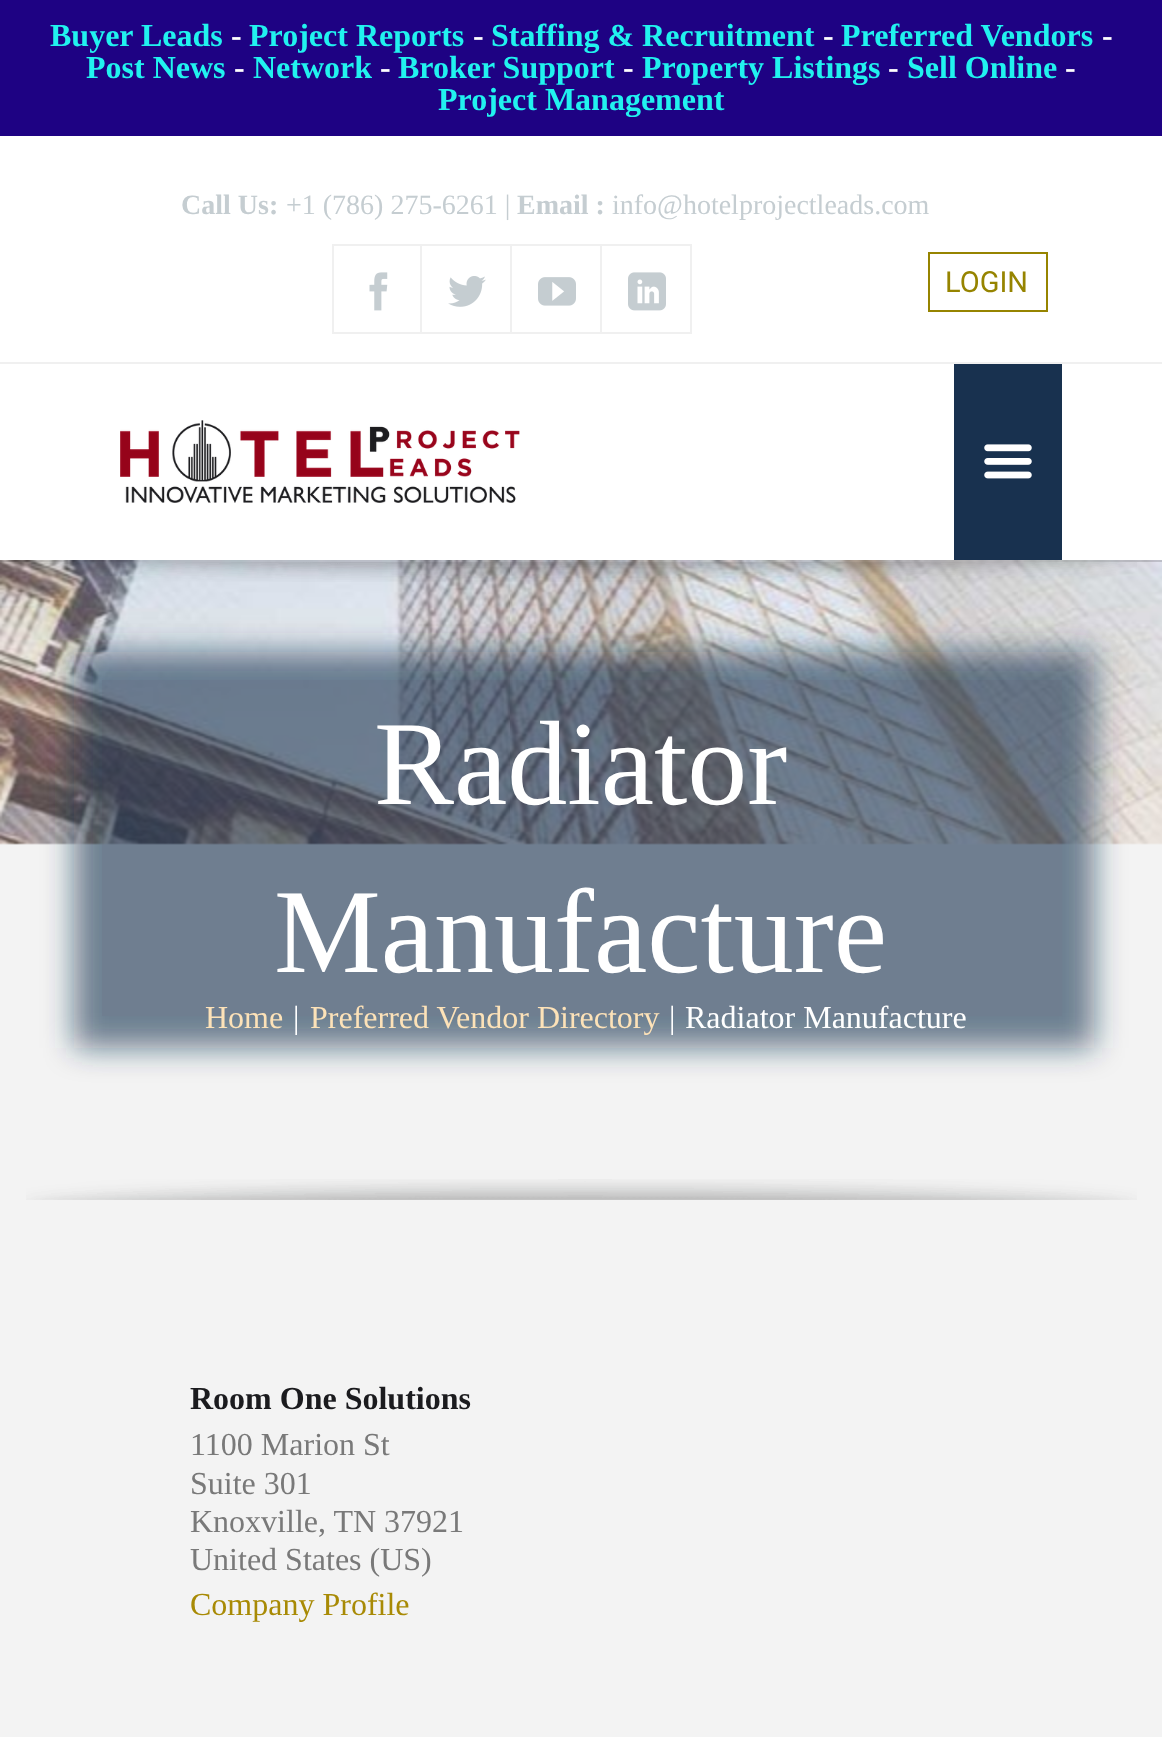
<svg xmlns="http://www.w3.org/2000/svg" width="1162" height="1737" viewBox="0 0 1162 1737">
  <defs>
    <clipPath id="clip1"><path d="M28 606H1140V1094H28ZM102 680H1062V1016H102Z" clip-rule="evenodd"/></clipPath>
    <filter id="blur1" x="-50%" y="-200%" width="200%" height="500%"><feGaussianBlur stdDeviation="15"/></filter>
  </defs>
  <rect width="100%" height="100%" fill="#f3f3f3"/>
  <rect x="0" y="0" width="1162" height="136" fill="#1e0283"/>
  <text x="50" y="46" font-family="Liberation Serif" font-size="32" font-weight="bold" fill="#21f2ef">Buyer Leads</text>
  <text x="231" y="46" font-family="Liberation Serif" font-size="32" font-weight="bold" fill="#ffffff">-</text>
  <text x="249" y="46" font-family="Liberation Serif" font-size="32" font-weight="bold" fill="#21f2ef">Project Reports</text>
  <text x="473" y="46" font-family="Liberation Serif" font-size="32" font-weight="bold" fill="#ffffff">-</text>
  <text x="491" y="46" font-family="Liberation Serif" font-size="32" font-weight="bold" fill="#21f2ef">Staffing &amp; Recruitment</text>
  <text x="823" y="46" font-family="Liberation Serif" font-size="32" font-weight="bold" fill="#ffffff">-</text>
  <text x="841" y="46" font-family="Liberation Serif" font-size="32" font-weight="bold" fill="#21f2ef">Preferred Vendors</text>
  <text x="1102" y="46" font-family="Liberation Serif" font-size="32" font-weight="bold" fill="#ffffff">-</text>
  <text x="86" y="78" font-family="Liberation Serif" font-size="32" font-weight="bold" fill="#21f2ef">Post News</text>
  <text x="234" y="78" font-family="Liberation Serif" font-size="32" font-weight="bold" fill="#ffffff">-</text>
  <text x="253" y="78" font-family="Liberation Serif" font-size="32" font-weight="bold" fill="#21f2ef">Network</text>
  <text x="380" y="78" font-family="Liberation Serif" font-size="32" font-weight="bold" fill="#ffffff">-</text>
  <text x="398" y="78" font-family="Liberation Serif" font-size="32" font-weight="bold" fill="#21f2ef">Broker Support</text>
  <text x="623" y="78" font-family="Liberation Serif" font-size="32" font-weight="bold" fill="#ffffff">-</text>
  <text x="642" y="78" font-family="Liberation Serif" font-size="32" font-weight="bold" fill="#21f2ef">Property Listings</text>
  <text x="888" y="78" font-family="Liberation Serif" font-size="32" font-weight="bold" fill="#ffffff">-</text>
  <text x="907" y="78" font-family="Liberation Serif" font-size="32" font-weight="bold" fill="#21f2ef">Sell Online</text>
  <text x="1065" y="78" font-family="Liberation Serif" font-size="32" font-weight="bold" fill="#ffffff">-</text>
  <text x="438" y="110" font-family="Liberation Serif" font-size="32" font-weight="bold" fill="#21f2ef">Project Management</text>
  <rect x="0" y="136" width="1162" height="226" fill="#ffffff"/>
  <rect x="0" y="362" width="1162" height="2" fill="#f0f0f0"/>
  <text x="181" y="214" font-family="Liberation Serif" font-size="28" font-weight="bold" fill="#c5cdd1">Call Us:</text>
  <text x="286" y="214" font-family="Liberation Serif" font-size="28" fill="#c5cdd1">+1 (786) 275-6261 |</text>
  <text x="517" y="214" font-family="Liberation Serif" font-size="28" font-weight="bold" fill="#c5cdd1">Email :</text>
  <text x="612" y="214" font-family="Liberation Serif" font-size="28" fill="#c5cdd1">info@hotelprojectleads.com</text>
  <rect x="333" y="245" width="88" height="88" fill="none" stroke="#f0f0f0" stroke-width="2"/>
  <image x="369" y="272" width="19" height="39" href="img1.png"/>
  <rect x="422" y="244" width="270" height="2" fill="#f0f0f0"/>
  <rect x="510" y="244" width="2" height="90" fill="#f0f0f0"/>
  <rect x="422" y="332" width="90" height="2" fill="#f0f0f0"/>
  <image x="448" y="276" width="38" height="31" href="img2.png"/>
  <rect x="600" y="244" width="2" height="90" fill="#f0f0f0"/>
  <rect x="512" y="332" width="90" height="2" fill="#f0f0f0"/>
  <image x="538" y="277" width="38" height="29" href="img3.png"/>
  <rect x="690" y="244" width="2" height="90" fill="#f0f0f0"/>
  <rect x="602" y="332" width="90" height="2" fill="#f0f0f0"/>
  <image x="628" y="272" width="38" height="39" href="img4.png"/>
  <rect x="929" y="253" width="118" height="58" fill="none" stroke="#968400" stroke-width="2"/>
  <text x="945" y="292" font-family="Roboto" font-size="29" fill="#968400">LOGIN</text>
  <rect x="0" y="364" width="1162" height="196" fill="#ffffff"/>
  <image x="120" y="420" width="400" height="83" href="img5.png"/>
  <rect x="954" y="364" width="108" height="196" fill="#18314f"/>
  <image x="984" y="444" width="48" height="35" href="img6.png"/>
  <image x="0" y="560" width="1162" height="285" href="img7.png"/>
  <rect x="0" y="560" width="1162" height="2" fill="#000000" fill-opacity="0.15"/>
  <image x="31" y="562" width="1106" height="20" href="img8.png"/>
  <g clip-path="url(#clip1)">
    <rect x="74" y="652" width="1020" height="396" fill="#18314f" fill-opacity="0.6" filter="url(#blur1)"/>
  </g>
  <rect x="102" y="680" width="960" height="336" fill="#18314f" fill-opacity="0.6"/>
  <text x="374" y="804" font-family="Liberation Serif" font-size="120" fill="#ffffff">Radiator</text>
  <text x="274" y="972" font-family="Liberation Serif" font-size="120" fill="#ffffff">Manufacture</text>
  <text x="205" y="1028" font-family="Liberation Serif" font-size="32" fill="#fde2b8">Home</text>
  <text x="293" y="1028" font-family="Liberation Serif" font-size="32" fill="#ffffff">|</text>
  <text x="310" y="1028" font-family="Liberation Serif" font-size="32" fill="#fde2b8">Preferred Vendor Directory</text>
  <text x="669" y="1028" font-family="Liberation Serif" font-size="32" fill="#ffffff">|</text>
  <text x="685" y="1028" font-family="Liberation Serif" font-size="32" fill="#ffffff">Radiator Manufacture</text>
  <image x="26" y="1179" width="1111" height="21" href="img9.png"/>
  <text x="190" y="1409" font-family="Liberation Serif" font-size="32" font-weight="bold" fill="#1b1b1e">Room One Solutions</text>
  <text x="190" y="1455" font-family="Liberation Serif" font-size="32" fill="#797979">1100 Marion St</text>
  <text x="190" y="1494" font-family="Liberation Serif" font-size="32" fill="#797979">Suite 301</text>
  <text x="190" y="1532" font-family="Liberation Serif" font-size="32" fill="#797979">Knoxville, TN 37921</text>
  <text x="190" y="1570" font-family="Liberation Serif" font-size="32" fill="#797979">United States (US)</text>
  <text x="190" y="1615" font-family="Liberation Serif" font-size="32" fill="#a88a05">Company Profile</text>
</svg>
